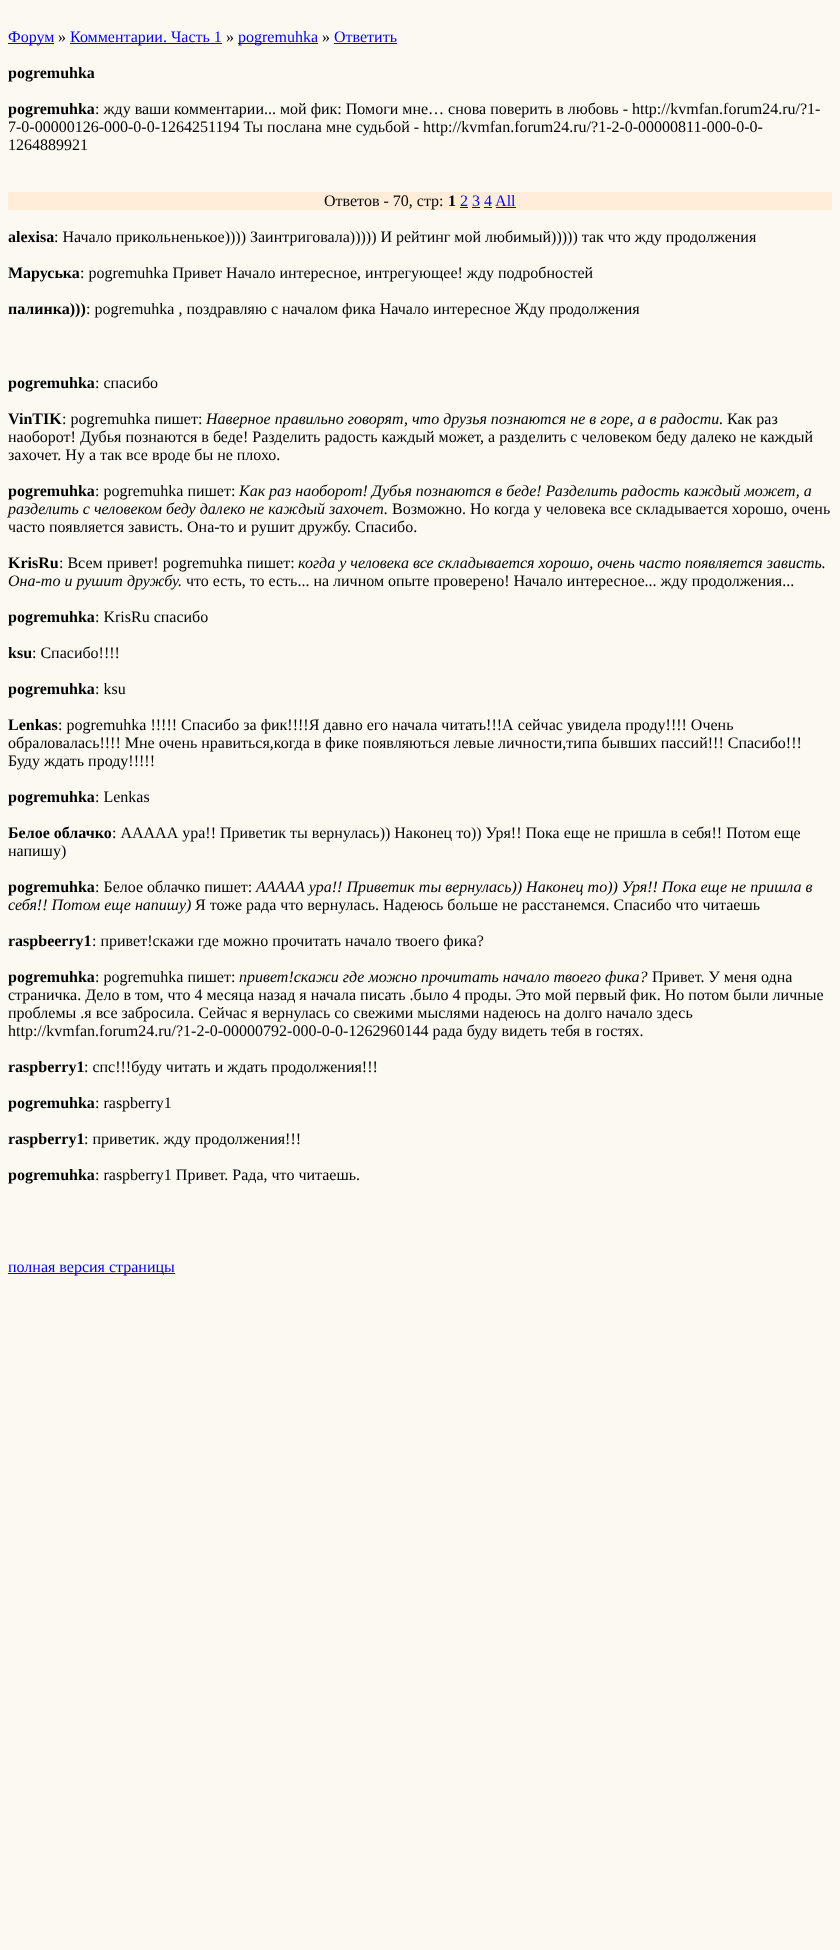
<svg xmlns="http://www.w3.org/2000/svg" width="840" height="1950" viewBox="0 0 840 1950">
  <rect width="100%" height="100%" fill="#fcf9f3"/>
  <rect x="8" y="43" width="46" height="1" fill="#0000ee"/>
  <text x="8" y="42" font-family="Liberation Serif" font-size="16" fill="#0000ee">Форум</text>
  <text x="58" y="42" font-family="Liberation Serif" font-size="16" fill="#000000">»</text>
  <rect x="70" y="43" width="152" height="1" fill="#0000ee"/>
  <text x="70" y="42" font-family="Liberation Serif" font-size="16" fill="#0000ee">Комментарии. Часть 1</text>
  <text x="226" y="42" font-family="Liberation Serif" font-size="16" fill="#000000">»</text>
  <rect x="238" y="43" width="80" height="1" fill="#0000ee"/>
  <text x="238" y="42" font-family="Liberation Serif" font-size="16" fill="#0000ee">pogremuhka</text>
  <text x="322" y="42" font-family="Liberation Serif" font-size="16" fill="#000000">»</text>
  <text x="334" y="42" font-family="Liberation Serif" font-size="16" fill="#0000ee">Ответить</text>
  <rect x="334" y="43" width="63" height="1" fill="#0000ee"/>
  <text x="8" y="78" font-family="Liberation Serif" font-size="16" font-weight="bold" fill="#000000">pogremuhka</text>
  <text x="8" y="114" font-family="Liberation Serif" font-size="16" font-weight="bold" fill="#000000">pogremuhka</text>
  <text x="95" y="114" font-family="Liberation Serif" font-size="16" fill="#000000">: жду ваши комментарии... мой фик: Помоги мне… снова поверить в любовь - http://kvmfan.forum24.ru/?1-</text>
  <text x="8" y="132" font-family="Liberation Serif" font-size="16" fill="#000000">7-0-00000126-000-0-0-1264251194 Ты послана мне судьбой - http://kvmfan.forum24.ru/?1-2-0-00000811-000-0-0-</text>
  <text x="8" y="150" font-family="Liberation Serif" font-size="16" fill="#000000">1264889921</text>
  <rect x="8" y="192" width="824" height="18" fill="#ffecd9"/>
  <text x="324" y="206" font-family="Liberation Serif" font-size="16" fill="#000000">Ответов - 70, стр:</text>
  <text x="448" y="206" font-family="Liberation Serif" font-size="16" font-weight="bold" fill="#000000">1</text>
  <text x="460" y="206" font-family="Liberation Serif" font-size="16" fill="#0000ee">2 3 4 All</text>
  <rect x="460" y="207" width="8" height="1" fill="#0000ee"/>
  <rect x="472" y="207" width="8" height="1" fill="#0000ee"/>
  <rect x="484" y="207" width="8" height="1" fill="#0000ee"/>
  <rect x="496" y="207" width="20" height="1" fill="#0000ee"/>
  <text x="8" y="242" font-family="Liberation Serif" font-size="16" font-weight="bold" fill="#000000">alexisa</text>
  <text x="54" y="242" font-family="Liberation Serif" font-size="16" fill="#000000">: Начало прикольненькое)))) Заинтриговала))))) И рейтинг мой любимый))))) так что жду продолжения</text>
  <text x="8" y="278" font-family="Liberation Serif" font-size="16" font-weight="bold" fill="#000000">Маруська</text>
  <text x="80" y="278" font-family="Liberation Serif" font-size="16" fill="#000000">: pogremuhka Привет Начало интересное, интрегующее! жду подробностей</text>
  <text x="8" y="314" font-family="Liberation Serif" font-size="16" font-weight="bold" fill="#000000">палинка)))</text>
  <text x="86" y="314" font-family="Liberation Serif" font-size="16" fill="#000000">: pogremuhka , поздравляю с началом фика Начало интересное Жду продолжения</text>
  <text x="8" y="388" font-family="Liberation Serif" font-size="16" font-weight="bold" fill="#000000">pogremuhka</text>
  <text x="95" y="388" font-family="Liberation Serif" font-size="16" fill="#000000">: спасибо</text>
  <text x="8" y="424" font-family="Liberation Serif" font-size="16" font-weight="bold" fill="#000000">VinTIK</text>
  <text x="62" y="424" font-family="Liberation Serif" font-size="16" fill="#000000">: pogremuhka пишет:</text>
  <text x="206" y="424" font-family="Liberation Serif" font-size="16" font-style="italic" fill="#000000">Наверное правильно говорят, что друзья познаются не в горе, а в радости.</text>
  <text x="727" y="424" font-family="Liberation Serif" font-size="16" fill="#000000">Как раз</text>
  <text x="8" y="442" font-family="Liberation Serif" font-size="16" fill="#000000">наоборот! Дубья познаются в беде! Разделить радость каждый может, а разделить с человеком беду далеко не каждый</text>
  <text x="8" y="460" font-family="Liberation Serif" font-size="16" fill="#000000">захочет. Ну а так все вроде бы не плохо.</text>
  <text x="8" y="496" font-family="Liberation Serif" font-size="16" font-weight="bold" fill="#000000">pogremuhka</text>
  <text x="95" y="496" font-family="Liberation Serif" font-size="16" fill="#000000">: pogremuhka пишет:</text>
  <text x="239" y="496" font-family="Liberation Serif" font-size="16" font-style="italic" fill="#000000">Как раз наоборот! Дубья познаются в беде! Разделить радость каждый может, а</text>
  <text x="8" y="514" font-family="Liberation Serif" font-size="16" font-style="italic" fill="#000000">разделить с человеком беду далеко не каждый захочет.</text>
  <text x="392" y="514" font-family="Liberation Serif" font-size="16" fill="#000000">Возможно. Но когда у человека все складывается хорошо, очень</text>
  <text x="8" y="532" font-family="Liberation Serif" font-size="16" fill="#000000">часто появляется зависть. Она-то и рушит дружбу. Спасибо.</text>
  <text x="8" y="568" font-family="Liberation Serif" font-size="16" font-weight="bold" fill="#000000">KrisRu</text>
  <text x="59" y="568" font-family="Liberation Serif" font-size="16" fill="#000000">: Всем привет! pogremuhka пишет:</text>
  <text x="298" y="568" font-family="Liberation Serif" font-size="16" font-style="italic" fill="#000000">когда у человека все складывается хорошо, очень часто появляется зависть.</text>
  <text x="8" y="586" font-family="Liberation Serif" font-size="16" font-style="italic" fill="#000000">Она-то и рушит дружбу.</text>
  <text x="186" y="586" font-family="Liberation Serif" font-size="16" fill="#000000">что есть, то есть... на личном опыте проверено! Начало интересное... жду продолжения...</text>
  <text x="8" y="622" font-family="Liberation Serif" font-size="16" font-weight="bold" fill="#000000">pogremuhka</text>
  <text x="95" y="622" font-family="Liberation Serif" font-size="16" fill="#000000">: KrisRu спасибо</text>
  <text x="8" y="658" font-family="Liberation Serif" font-size="16" font-weight="bold" fill="#000000">ksu</text>
  <text x="32" y="658" font-family="Liberation Serif" font-size="16" fill="#000000">: Спасибо!!!!</text>
  <text x="8" y="694" font-family="Liberation Serif" font-size="16" font-weight="bold" fill="#000000">pogremuhka</text>
  <text x="95" y="694" font-family="Liberation Serif" font-size="16" fill="#000000">: ksu</text>
  <text x="8" y="730" font-family="Liberation Serif" font-size="16" font-weight="bold" fill="#000000">Lenkas</text>
  <text x="58" y="730" font-family="Liberation Serif" font-size="16" fill="#000000">: pogremuhka !!!!! Спасибо за фик!!!!Я давно его начала читать!!!А сейчас увидела проду!!!! Очень</text>
  <text x="8" y="748" font-family="Liberation Serif" font-size="16" fill="#000000">обраловалась!!!! Мне очень нравиться,когда в фике появляються левые личности,типа бывших пассий!!! Спасибо!!!</text>
  <text x="8" y="766" font-family="Liberation Serif" font-size="16" fill="#000000">Буду ждать проду!!!!!</text>
  <text x="8" y="802" font-family="Liberation Serif" font-size="16" font-weight="bold" fill="#000000">pogremuhka</text>
  <text x="95" y="802" font-family="Liberation Serif" font-size="16" fill="#000000">: Lenkas</text>
  <text x="8" y="838" font-family="Liberation Serif" font-size="16" font-weight="bold" fill="#000000">Белое облачко</text>
  <text x="112" y="838" font-family="Liberation Serif" font-size="16" fill="#000000">: ААААА ура!! Приветик ты вернулась)) Наконец то)) Уря!! Пока еще не пришла в себя!! Потом еще</text>
  <text x="8" y="856" font-family="Liberation Serif" font-size="16" fill="#000000">напишу)</text>
  <text x="8" y="892" font-family="Liberation Serif" font-size="16" font-weight="bold" fill="#000000">pogremuhka</text>
  <text x="95" y="892" font-family="Liberation Serif" font-size="16" fill="#000000">: Белое облачко пишет:</text>
  <text x="256" y="892" font-family="Liberation Serif" font-size="16" font-style="italic" fill="#000000">ААААА ура!! Приветик ты вернулась)) Наконец то)) Уря!! Пока еще не пришла в</text>
  <text x="8" y="910" font-family="Liberation Serif" font-size="16" font-style="italic" fill="#000000">себя!! Потом еще напишу)</text>
  <text x="195" y="910" font-family="Liberation Serif" font-size="16" fill="#000000">Я тоже рада что вернулась. Надеюсь больше не расстанемся. Спасибо что читаешь</text>
  <text x="8" y="946" font-family="Liberation Serif" font-size="16" font-weight="bold" fill="#000000">raspbeerry1</text>
  <text x="92" y="946" font-family="Liberation Serif" font-size="16" fill="#000000">: привет!скажи где можно прочитать начало твоего фика?</text>
  <text x="8" y="982" font-family="Liberation Serif" font-size="16" font-weight="bold" fill="#000000">pogremuhka</text>
  <text x="95" y="982" font-family="Liberation Serif" font-size="16" fill="#000000">: pogremuhka пишет:</text>
  <text x="239" y="982" font-family="Liberation Serif" font-size="16" font-style="italic" fill="#000000">привет!скажи где можно прочитать начало твоего фика?</text>
  <text x="652" y="982" font-family="Liberation Serif" font-size="16" fill="#000000">Привет. У меня одна</text>
  <text x="8" y="1000" font-family="Liberation Serif" font-size="16" fill="#000000">страничка. Дело в том, что 4 месяца назад я начала писать .было 4 проды. Это мой первый фик. Но потом были личные</text>
  <text x="8" y="1018" font-family="Liberation Serif" font-size="16" fill="#000000">проблемы .я все забросила. Сейчас я вернулась со свежими мыслями надеюсь на долго начало здесь</text>
  <text x="8" y="1036" font-family="Liberation Serif" font-size="16" fill="#000000">http://kvmfan.forum24.ru/?1-2-0-00000792-000-0-0-1262960144 рада буду видеть тебя в гостях.</text>
  <text x="8" y="1072" font-family="Liberation Serif" font-size="16" font-weight="bold" fill="#000000">raspberry1</text>
  <text x="84" y="1072" font-family="Liberation Serif" font-size="16" fill="#000000">: спс!!!буду читать и ждать продолжения!!!</text>
  <text x="8" y="1108" font-family="Liberation Serif" font-size="16" font-weight="bold" fill="#000000">pogremuhka</text>
  <text x="95" y="1108" font-family="Liberation Serif" font-size="16" fill="#000000">: raspberry1</text>
  <text x="8" y="1144" font-family="Liberation Serif" font-size="16" font-weight="bold" fill="#000000">raspberry1</text>
  <text x="84" y="1144" font-family="Liberation Serif" font-size="16" fill="#000000">: приветик. жду продолжения!!!</text>
  <text x="8" y="1180" font-family="Liberation Serif" font-size="16" font-weight="bold" fill="#000000">pogremuhka</text>
  <text x="95" y="1180" font-family="Liberation Serif" font-size="16" fill="#000000">: raspberry1 Привет. Рада, что читаешь.</text>
  <rect x="8" y="1273" width="167" height="1" fill="#0000ee"/>
  <text x="8" y="1272" font-family="Liberation Serif" font-size="16" fill="#0000ee">полная версия страницы</text>
</svg>
